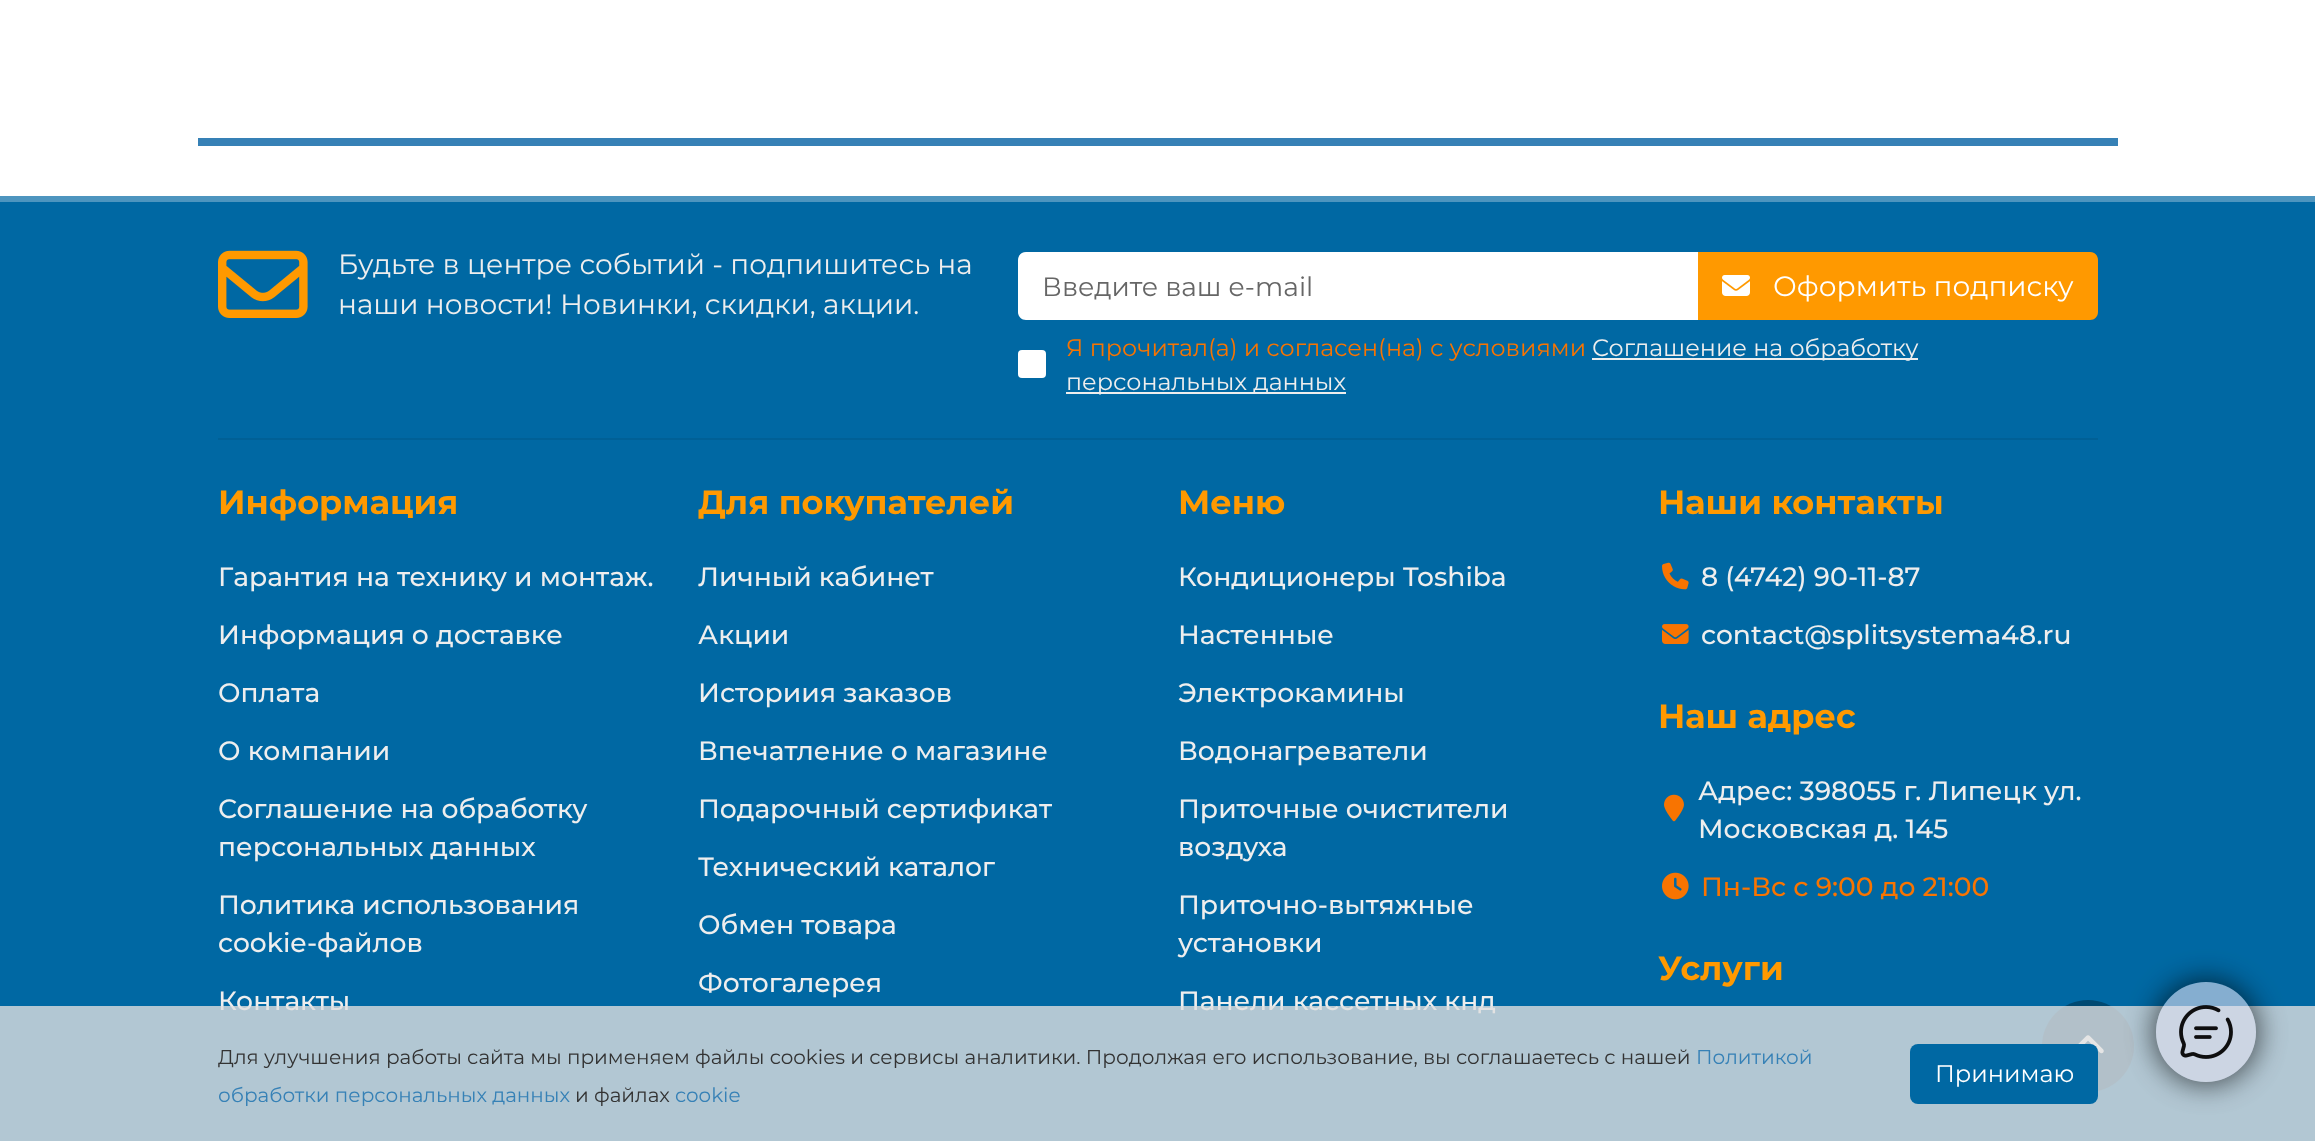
<svg xmlns="http://www.w3.org/2000/svg" width="2315" height="1141" viewBox="0 0 2315 1141">
  <defs>
    <clipPath id="clip1"><path d="M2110 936H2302V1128H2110ZM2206 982C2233.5 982 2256 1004.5 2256 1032C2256 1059.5 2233.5 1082 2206 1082C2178.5 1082 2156 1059.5 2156 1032C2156 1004.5 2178.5 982 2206 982Z" clip-rule="evenodd"/></clipPath>
    <filter id="blur1" x="-50%" y="-200%" width="200%" height="500%"><feGaussianBlur stdDeviation="15"/></filter>
  </defs>
  <rect width="100%" height="100%" fill="#ffffff"/>
  <rect x="198" y="138" width="1920" height="8" fill="#3681b6"/>
  <rect x="0" y="202" width="2315" height="939" fill="#0068a3"/>
  <rect x="0" y="196" width="2315" height="6" fill="#4d95bf"/>
  <image x="218" y="250" width="90" height="68" href="img1.png"/>
  <text x="338" y="274" font-family="Montserrat" font-size="28" fill="#eeeeee">Будьте в центре событий - подпишитесь на</text>
  <text x="338" y="314" font-family="Montserrat" font-size="28" fill="#eeeeee">наши новости! Новинки, скидки, акции.</text>
  <path d="M1026 252H1698V320H1026C1021.5 320 1018 316.5 1018 312V260C1018 255.5 1021.5 252 1026 252Z" fill="#ffffff"/>
  <text x="1042" y="296" font-family="Montserrat" font-size="26.6" fill="#666666">Введите ваш e-mail</text>
  <path d="M1698 252H2090C2094.5 252 2098 255.5 2098 260V312C2098 316.5 2094.5 320 2090 320H1698Z" fill="#ff9900"/>
  <image x="1722" y="275" width="28" height="21" href="img2.png"/>
  <text x="1773" y="296" font-family="Montserrat" font-size="28" fill="#ffffff">Оформить подписку</text>
  <rect x="1018" y="350" width="28" height="28" rx="4" fill="#ffffff"/>
  <text x="1066" y="356" font-family="Montserrat" font-size="23.8" fill="#f87401">Я прочитал(а) и согласен(на) с условиями</text>
  <rect x="1592" y="358" width="326" height="2" fill="#eeeeee"/>
  <text x="1592" y="356" font-family="Montserrat" font-size="23.8" fill="#eeeeee">Соглашение на обработку</text>
  <rect x="1066" y="392" width="280" height="2" fill="#eeeeee"/>
  <text x="1066" y="390" font-family="Montserrat" font-size="23.8" fill="#eeeeee">персональных данных</text>
  <rect x="218" y="438" width="1880" height="2" fill="#006096"/>
  <text x="218" y="514" font-family="Montserrat" font-size="33.5" font-weight="bold" fill="#ff9900">Информация</text>
  <text x="218" y="586" font-family="Montserrat" font-size="26.6" font-weight="500" fill="#eeeeee">Гарантия на технику и монтаж.</text>
  <text x="218" y="644" font-family="Montserrat" font-size="26.6" font-weight="500" fill="#eeeeee">Информация о доставке</text>
  <text x="218" y="702" font-family="Montserrat" font-size="26.6" font-weight="500" fill="#eeeeee">Оплата</text>
  <text x="218" y="760" font-family="Montserrat" font-size="26.6" font-weight="500" fill="#eeeeee">О компании</text>
  <text x="218" y="818" font-family="Montserrat" font-size="26.6" font-weight="500" fill="#eeeeee">Соглашение на обработку</text>
  <text x="218" y="856" font-family="Montserrat" font-size="26.6" font-weight="500" fill="#eeeeee">персональных данных</text>
  <text x="218" y="914" font-family="Montserrat" font-size="26.6" font-weight="500" fill="#eeeeee">Политика использования</text>
  <text x="218" y="952" font-family="Montserrat" font-size="26.6" font-weight="500" fill="#eeeeee">cookie-файлов</text>
  <text x="218" y="1010" font-family="Montserrat" font-size="26.6" font-weight="500" fill="#eeeeee">Контакты</text>
  <text x="698" y="514" font-family="Montserrat" font-size="33.5" font-weight="bold" fill="#ff9900">Для покупателей</text>
  <text x="698" y="586" font-family="Montserrat" font-size="26.6" font-weight="500" fill="#eeeeee">Личный кабинет</text>
  <text x="698" y="644" font-family="Montserrat" font-size="26.6" font-weight="500" fill="#eeeeee">Акции</text>
  <text x="698" y="702" font-family="Montserrat" font-size="26.6" font-weight="500" fill="#eeeeee">Историия заказов</text>
  <text x="698" y="760" font-family="Montserrat" font-size="26.6" font-weight="500" fill="#eeeeee">Впечатление о магазине</text>
  <text x="698" y="818" font-family="Montserrat" font-size="26.6" font-weight="500" fill="#eeeeee">Подарочный сертификат</text>
  <text x="698" y="876" font-family="Montserrat" font-size="26.6" font-weight="500" fill="#eeeeee">Технический каталог</text>
  <text x="698" y="934" font-family="Montserrat" font-size="26.6" font-weight="500" fill="#eeeeee">Обмен товара</text>
  <text x="698" y="992" font-family="Montserrat" font-size="26.6" font-weight="500" fill="#eeeeee">Фотогалерея</text>
  <text x="1178" y="514" font-family="Montserrat" font-size="33.5" font-weight="bold" fill="#ff9900">Меню</text>
  <text x="1178" y="586" font-family="Montserrat" font-size="26.6" font-weight="500" fill="#eeeeee">Кондиционеры Toshiba</text>
  <text x="1178" y="644" font-family="Montserrat" font-size="26.6" font-weight="500" fill="#eeeeee">Настенные</text>
  <text x="1178" y="702" font-family="Montserrat" font-size="26.6" font-weight="500" fill="#eeeeee">Электрокамины</text>
  <text x="1178" y="760" font-family="Montserrat" font-size="26.6" font-weight="500" fill="#eeeeee">Водонагреватели</text>
  <text x="1178" y="818" font-family="Montserrat" font-size="26.6" font-weight="500" fill="#eeeeee">Приточные очистители</text>
  <text x="1178" y="856" font-family="Montserrat" font-size="26.6" font-weight="500" fill="#eeeeee">воздуха</text>
  <text x="1178" y="914" font-family="Montserrat" font-size="26.6" font-weight="500" fill="#eeeeee">Приточно-вытяжные</text>
  <text x="1178" y="952" font-family="Montserrat" font-size="26.6" font-weight="500" fill="#eeeeee">установки</text>
  <text x="1178" y="1010" font-family="Montserrat" font-size="26.6" font-weight="500" fill="#eeeeee">Панели кассетных кнд</text>
  <text x="1658" y="514" font-family="Montserrat" font-size="33.5" font-weight="bold" fill="#ff9900">Наши контакты</text>
  <image x="1662" y="562" width="27" height="28" href="img3.png"/>
  <text x="1701" y="586" font-family="Montserrat" font-size="26.6" font-weight="500" fill="#eeeeee">8 (4742) 90-11-87</text>
  <image x="1662" y="624" width="27" height="20" href="img4.png"/>
  <text x="1701" y="644" font-family="Montserrat" font-size="26.6" font-weight="500" fill="#eeeeee">contact@splitsystema48.ru</text>
  <text x="1658" y="728" font-family="Montserrat" font-size="33.5" font-weight="bold" fill="#ff9900">Наш адрес</text>
  <image x="1664" y="794" width="20" height="28" href="img5.png"/>
  <text x="1698" y="800" font-family="Montserrat" font-size="26.6" font-weight="500" fill="#eeeeee">Адрес: 398055 г. Липецк ул.</text>
  <text x="1698" y="838" font-family="Montserrat" font-size="26.6" font-weight="500" fill="#eeeeee">Московская д. 145</text>
  <image x="1662" y="872" width="27" height="28" href="img6.png"/>
  <text x="1701" y="896" font-family="Montserrat" font-size="26.6" font-weight="500" fill="#f87401">Пн-Вс с 9:00 до 21:00</text>
  <text x="1658" y="980" font-family="Montserrat" font-size="33.5" font-weight="bold" fill="#ff9900">Услуги</text>
  <circle cx="2088" cy="1046" r="46" fill="#004972"/>
  <image x="2078" y="1035" width="26" height="19" href="img7.png"/>
  <rect x="0" y="1006" width="2315" height="135" fill="#dfdfdf" fill-opacity="0.8"/>
  <g clip-path="url(#clip1)">
    <rect x="2156" y="982" width="100" height="100" rx="50" fill="#000000" fill-opacity="0.3" filter="url(#blur1)"/>
    <rect x="2156" y="982" width="100" height="100" rx="50" fill="#000000" fill-opacity="0.5" filter="url(#blur1)"/>
  </g>
  <circle cx="2206" cy="1032" r="50" fill="#dddeee" fill-opacity="0.6"/>
  <image x="2179" y="1005" width="54" height="54" href="img8.png"/>
  <text x="218" y="1064" font-family="Montserrat" font-size="20" fill="#333333">Для улучшения работы сайта мы применяем файлы cookies и сервисы аналитики. Продолжая его использование, вы соглашаетесь с нашей</text>
  <text x="1696" y="1064" font-family="Montserrat" font-size="20" fill="#3681b6">Политикой</text>
  <text x="218" y="1102" font-family="Montserrat" font-size="20" fill="#3681b6">обработки персональных данных</text>
  <text x="575" y="1102" font-family="Montserrat" font-size="20" fill="#333333">и файлах</text>
  <text x="675" y="1102" font-family="Montserrat" font-size="20" fill="#3681b6">cookie</text>
  <rect x="1910" y="1044" width="188" height="60" rx="8" fill="#0068a3"/>
  <text x="1935" y="1082" font-family="Montserrat" font-size="24" fill="#ffffff">Принимаю</text>
</svg>
